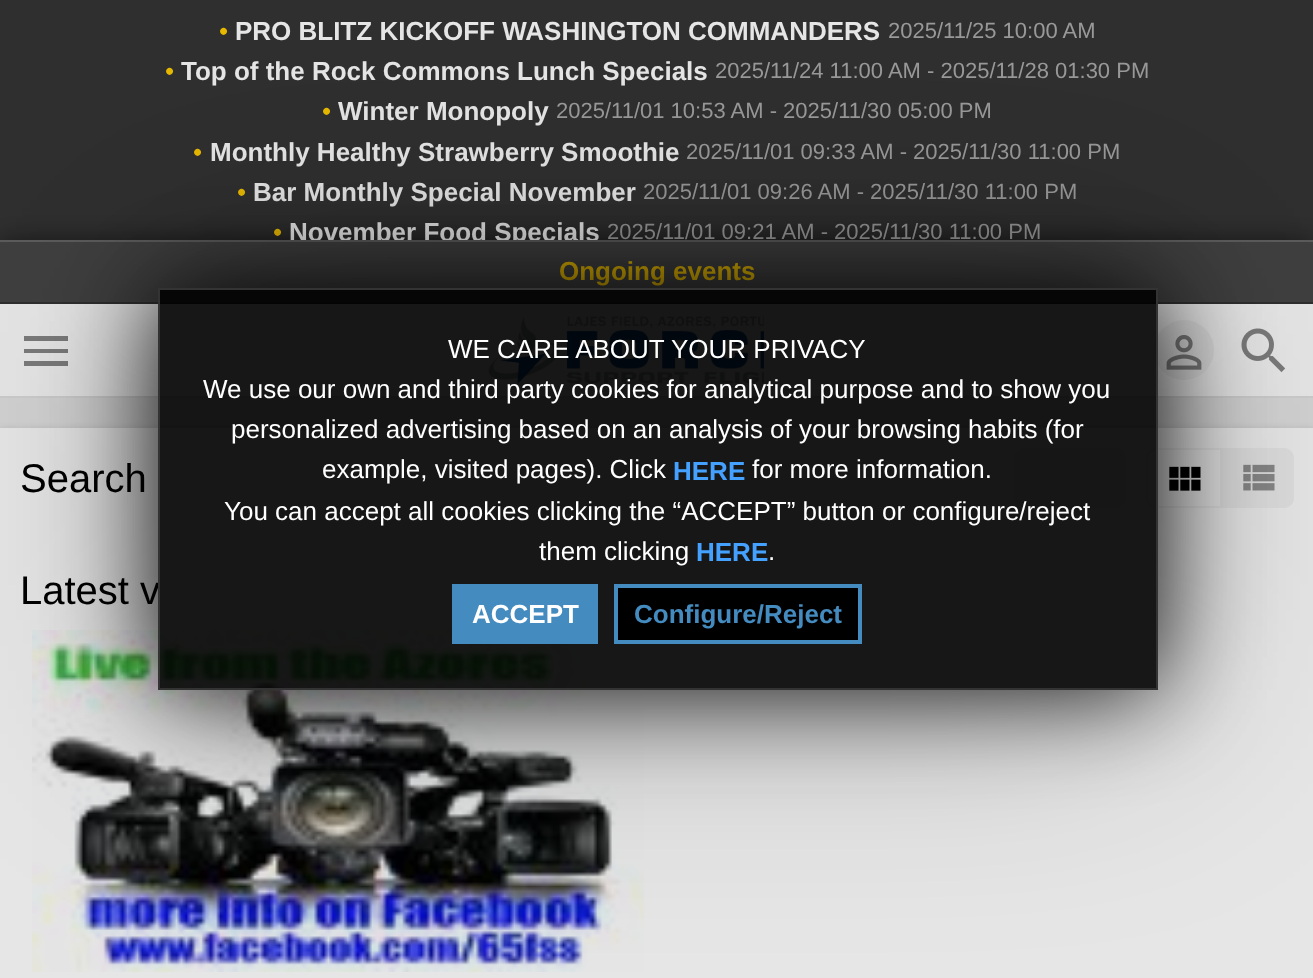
<svg xmlns="http://www.w3.org/2000/svg" width="1313" height="978" viewBox="0 0 1313 978">
  <defs>
    <filter id="blur1" x="-50%" y="-200%" width="200%" height="500%"><feGaussianBlur stdDeviation="13"/></filter>
    <clipPath id="clip1"><rect x="0" y="0" width="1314" height="240"/></clipPath>
    <filter id="blur2" x="-50%" y="-200%" width="200%" height="500%"><feGaussianBlur stdDeviation="3"/></filter>
    <clipPath id="clip2"><path d="M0 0H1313V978H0ZM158 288H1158V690H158Z" clip-rule="evenodd"/></clipPath>
    <filter id="blur3" x="-50%" y="-200%" width="200%" height="500%"><feGaussianBlur stdDeviation="120"/></filter>
    <clipPath id="clip3"><path d="M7 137H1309V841H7ZM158 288H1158V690H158Z" clip-rule="evenodd"/></clipPath>
    <filter id="blur4" x="-50%" y="-200%" width="200%" height="500%"><feGaussianBlur stdDeviation="50"/></filter>
  </defs>
  <rect width="100%" height="100%" fill="#d2d2d2"/>
  <rect x="0" y="0" width="1313" height="240" fill="#2f2f2f"/>
  <text x="219" y="40" font-family="Liberation Sans" font-size="26" fill="#e6b800">•</text>
  <text x="235" y="40" font-family="Liberation Sans" font-size="26" font-weight="bold" fill="#e6e6e6">PRO BLITZ KICKOFF WASHINGTON COMMANDERS</text>
  <text x="888" y="38" font-family="Liberation Sans" font-size="22" fill="#999999">2025/11/25 10:00 AM</text>
  <text x="165" y="80" font-family="Liberation Sans" font-size="26" fill="#e6b800">•</text>
  <text x="181" y="80" font-family="Liberation Sans" font-size="26" font-weight="bold" fill="#e6e6e6">Top of the Rock Commons Lunch Specials</text>
  <text x="715" y="78" font-family="Liberation Sans" font-size="22" fill="#999999">2025/11/24 11:00 AM - 2025/11/28 01:30 PM</text>
  <text x="322" y="120" font-family="Liberation Sans" font-size="26" fill="#e6b800">•</text>
  <text x="338" y="120" font-family="Liberation Sans" font-size="26" font-weight="bold" fill="#e6e6e6">Winter Monopoly</text>
  <text x="556" y="118" font-family="Liberation Sans" font-size="22" fill="#999999">2025/11/01 10:53 AM - 2025/11/30 05:00 PM</text>
  <text x="193" y="161" font-family="Liberation Sans" font-size="26" fill="#e6b800">•</text>
  <text x="210" y="161" font-family="Liberation Sans" font-size="26" font-weight="bold" fill="#e6e6e6">Monthly Healthy Strawberry Smoothie</text>
  <text x="686" y="159" font-family="Liberation Sans" font-size="22" fill="#999999">2025/11/01 09:33 AM - 2025/11/30 11:00 PM</text>
  <text x="237" y="201" font-family="Liberation Sans" font-size="26" fill="#e6b800">•</text>
  <rect x="0" y="240" width="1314" height="64" fill="#000000" fill-opacity="0.5" filter="url(#blur1)"/>
  <text x="253" y="201" font-family="Liberation Sans" font-size="26" font-weight="bold" fill="#e6e6e6">Bar Monthly Special November</text>
  <text x="643" y="199" font-family="Liberation Sans" font-size="22" fill="#999999">2025/11/01 09:26 AM - 2025/11/30 11:00 PM</text>
  <text x="273" y="241" font-family="Liberation Sans" font-size="26" fill="#e6b800">•</text>
  <g clip-path="url(#clip1)">
    <text x="289" y="241" font-family="Liberation Sans" font-size="26" font-weight="bold" fill="#e6e6e6">November Food Specials</text>
  </g>
  <text x="607" y="239" font-family="Liberation Sans" font-size="22" fill="#999999">2025/11/01 09:21 AM - 2025/11/30 11:00 PM</text>
  <rect x="0" y="242" width="1313" height="60" fill="#3f3f3f"/>
  <rect x="0" y="240" width="1313" height="2" fill="#5b5b5b"/>
  <rect x="0" y="302" width="1313" height="2" fill="#2e2e2e"/>
  <text x="559" y="280" font-family="Liberation Sans" font-size="26" font-weight="bold" fill="#e6b800">Ongoing events</text>
  <rect x="0" y="304" width="1313" height="92" fill="#e6e6e6"/>
  <rect x="0" y="396" width="1313" height="2" fill="#cccccc"/>
  <path d="M24 336H68V341H24ZM24 353V349H68V353ZM24 366V361H68V366Z" fill="#7a7a7a"/>
  <image x="488" y="316" width="276" height="69" href="img1.png"/>
  <circle cx="1184" cy="350" r="30" fill="#dddddd"/>
  <image x="1166" y="335" width="36" height="35" href="img2.png"/>
  <image x="1241" y="328" width="45" height="45" href="img3.png"/>
  <rect x="0" y="428" width="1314" height="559" fill="#000000" fill-opacity="0.1" filter="url(#blur2)"/>
  <rect x="0" y="428" width="1313" height="550" fill="#e6e6e6"/>
  <text x="20" y="492" font-family="Liberation Sans" font-size="40" fill="#000000">Search</text>
  <rect x="1014" y="448" width="112" height="60" rx="10" fill="#dddddd"/>
  <path d="M1156 449H1221V507H1156C1151 507 1147 503 1147 498V458C1147 453 1151 449 1156 449Z" fill="none" stroke="#dddddd" stroke-width="2"/>
  <image x="1169" y="466" width="32" height="25" href="img4.png"/>
  <path d="M1222 448H1284C1289.5 448 1294 452.5 1294 458V498C1294 503.5 1289.5 508 1284 508H1222Z" fill="#dddddd"/>
  <image x="1243" y="464" width="32" height="27" href="img5.png"/>
  <text x="20" y="604" font-family="Liberation Sans" font-size="40" fill="#000000">Latest v</text>
  <image x="32" y="630" width="612" height="342" href="img6.png"/>
  <g clip-path="url(#clip2)">
    <rect x="158" y="288" width="1000" height="402" fill="#000000" fill-opacity="0.3" filter="url(#blur3)"/>
  </g>
  <g clip-path="url(#clip3)">
    <rect x="158" y="288" width="1000" height="402" fill="#000000" fill-opacity="0.9" filter="url(#blur4)"/>
  </g>
  <rect x="159" y="289" width="998" height="400" fill="#000000" fill-opacity="0.9" stroke="#333333" stroke-width="2"/>
  <text x="448" y="358" font-family="Liberation Sans" font-size="26" fill="#ffffff">WE CARE ABOUT YOUR PRIVACY</text>
  <text x="203" y="398" font-family="Liberation Sans" font-size="26" fill="#ffffff">We use our own and third party cookies for analytical purpose and to show you</text>
  <text x="231" y="438" font-family="Liberation Sans" font-size="26" fill="#ffffff">personalized advertising based on an analysis of your browsing habits (for</text>
  <text x="322" y="478" font-family="Liberation Sans" font-size="26" fill="#ffffff">example, visited pages). Click</text>
  <text x="673" y="480" font-family="Liberation Sans" font-size="26" font-weight="bold" fill="#45a1ff">HERE</text>
  <text x="752" y="478" font-family="Liberation Sans" font-size="26" fill="#ffffff">for more information.</text>
  <text x="224" y="520" font-family="Liberation Sans" font-size="26" fill="#ffffff">You can accept all cookies clicking the “ACCEPT” button or configure/reject</text>
  <text x="539" y="560" font-family="Liberation Sans" font-size="26" fill="#ffffff">them clicking</text>
  <text x="696" y="561" font-family="Liberation Sans" font-size="26" font-weight="bold" fill="#45a1ff">HERE</text>
  <text x="768" y="560" font-family="Liberation Sans" font-size="26" fill="#ffffff">.</text>
  <rect x="452" y="584" width="146" height="60" fill="#448bc0"/>
  <text x="472" y="623" font-family="Liberation Sans" font-size="26" font-weight="bold" fill="#ffffff">ACCEPT</text>
  <rect x="616" y="586" width="244" height="56" fill="#000000" stroke="#448bc0" stroke-width="4"/>
  <text x="634" y="623" font-family="Liberation Sans" font-size="26" font-weight="bold" fill="#448bc0">Configure/Reject</text>
</svg>
